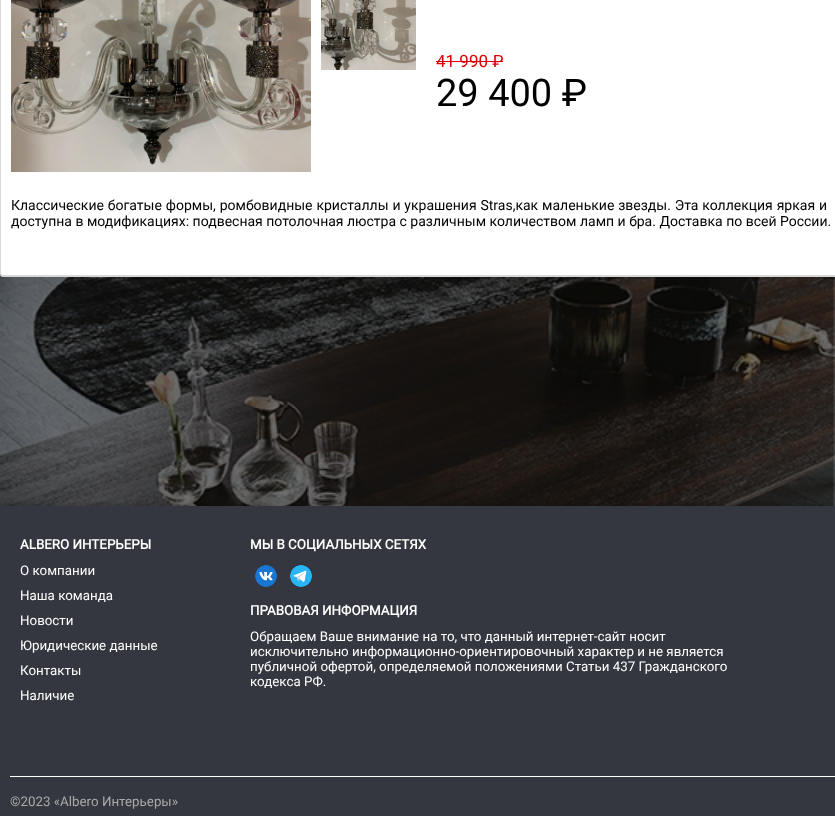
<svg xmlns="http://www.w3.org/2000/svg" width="835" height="816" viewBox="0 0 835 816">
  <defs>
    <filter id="blur1" x="-50%" y="-200%" width="200%" height="500%"><feGaussianBlur stdDeviation="2"/></filter>
  </defs>
  <rect width="100%" height="100%" fill="#ffffff"/>
  <image x="0" y="274" width="835" height="232" href="img1.png"/>
  <path d="M3-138H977C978-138 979-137 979-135V274C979 275 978 275 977 275H3C2 275 1 275 1 274V-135C1-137 2-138 3-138Z" fill="#ffffff"/>
  <path d="M3-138H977C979-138 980-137 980-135V274C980 276 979 277 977 277H3C1 277 0 276 0 274V-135C0-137 1-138 3-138ZM3-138H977C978-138 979-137 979-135V274C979 275 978 275 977 275H3C2 275 1 275 1 274V-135C1-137 2-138 3-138Z" fill="#d8d8d8" fill-rule="evenodd"/>
  <image x="11" y="0" width="300" height="172" href="img2.png"/>
  <image x="321" y="0" width="95" height="70" href="img3.png"/>
  <text x="436" y="67" font-family="Roboto" font-size="17" fill="#da0000">41 990 ₽</text>
  <rect x="436" y="61" width="67" height="1" fill="#da0000"/>
  <text x="436" y="106" font-family="Roboto" font-size="38" fill="#000000">29 400 ₽</text>
  <text x="11" y="210" word-spacing="0.4" font-family="Roboto" font-size="14" fill="#000000">Классические богатые формы, ромбовидные кристаллы и украшения Stras,как маленькие звезды. Эта коллекция яркая и</text>
  <text x="11" y="226" font-family="Roboto" font-size="14" fill="#000000">доступна в модификациях: подвесная потолочная люстра с различным количеством ламп и бра. Доставка по всей России.</text>
  <rect x="0" y="504" width="835" height="310" fill="#000000" fill-opacity="0.15" filter="url(#blur1)"/>
  <rect x="0" y="506" width="835" height="310" fill="#34373f"/>
  <rect x="10" y="776" width="825" height="1" fill="#ffffff"/>
  <text x="20" y="549" font-family="Roboto" font-size="13.35" font-weight="bold" fill="#ffffff">ALBERO ИНТЕРЬЕРЫ</text>
  <text x="20" y="575" font-family="Roboto" font-size="13.35" fill="#ffffff">О компании</text>
  <text x="20" y="600" font-family="Roboto" font-size="13.35" fill="#ffffff">Наша команда</text>
  <text x="20" y="625" font-family="Roboto" font-size="13.35" fill="#ffffff">Новости</text>
  <text x="20" y="650" font-family="Roboto" font-size="13.35" fill="#ffffff">Юридические данные</text>
  <text x="20" y="675" font-family="Roboto" font-size="13.35" fill="#ffffff">Контакты</text>
  <text x="20" y="700" font-family="Roboto" font-size="13.35" fill="#ffffff">Наличие</text>
  <text x="250" y="549" font-family="Roboto" font-size="13.35" font-weight="bold" fill="#ffffff">МЫ В СОЦИАЛЬНЫХ СЕТЯХ</text>
  <image x="255" y="565" width="22" height="22" href="img4.png"/>
  <image x="290" y="565" width="22" height="22" href="img5.png"/>
  <text x="250" y="615" font-family="Roboto" font-size="13.35" font-weight="bold" fill="#ffffff">ПРАВОВАЯ ИНФОРМАЦИЯ</text>
  <text x="250" y="641" font-family="Roboto" font-size="13.35" fill="#ffffff">Обращаем Ваше внимание на то, что данный интернет-сайт носит</text>
  <text x="250" y="656" font-family="Roboto" font-size="13.35" fill="#ffffff">исключительно информационно-ориентировочный характер и не является</text>
  <text x="250" y="671" font-family="Roboto" font-size="13.35" fill="#ffffff">публичной офертой, определяемой положениями Статьи 437 Гражданского</text>
  <text x="250" y="686" font-family="Roboto" font-size="13.35" fill="#ffffff">кодекса РФ.</text>
  <text x="10" y="806" font-family="Roboto" font-size="13.35" fill="#aaaaaa">©2023 «Albero Интерьеры»</text>
</svg>
